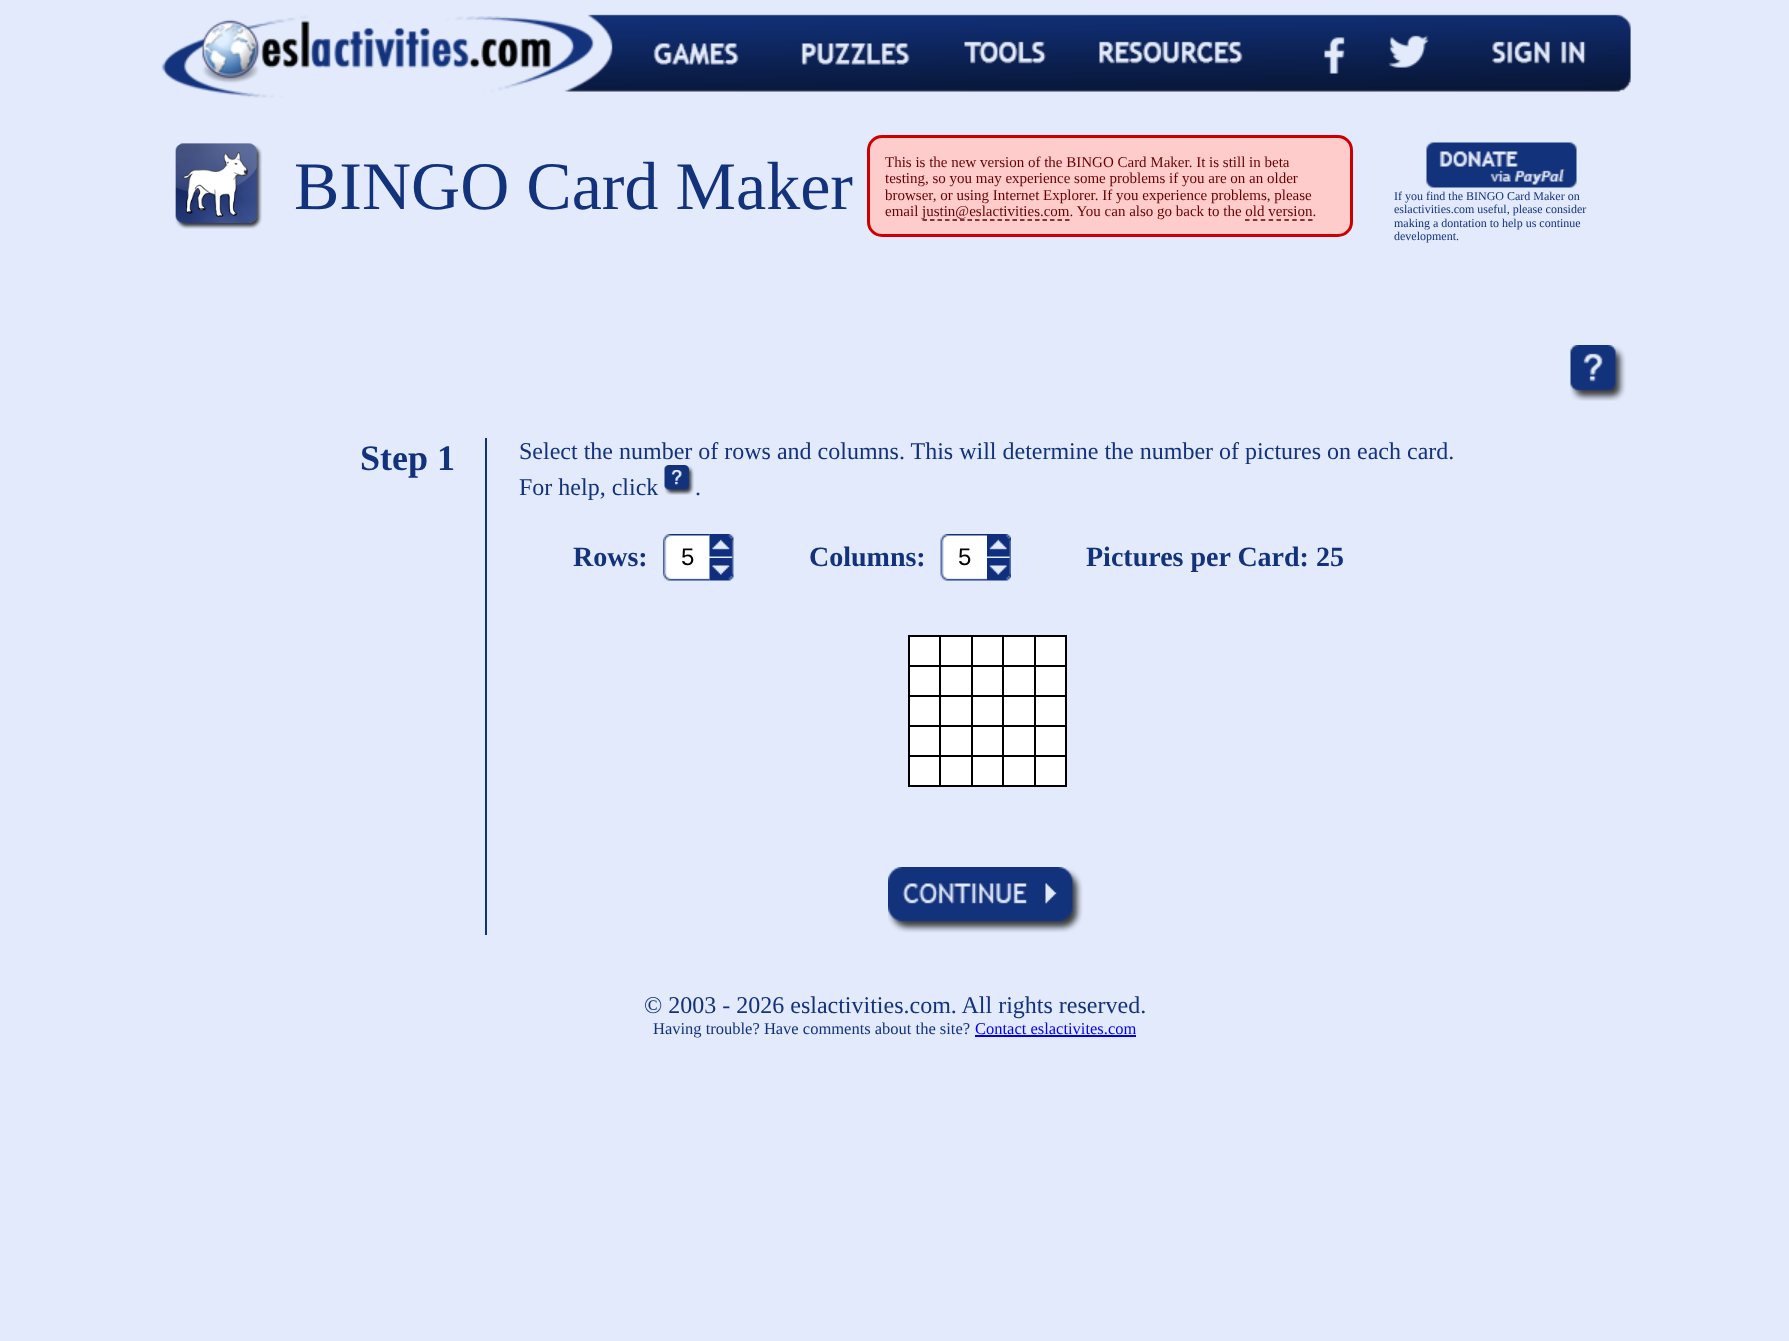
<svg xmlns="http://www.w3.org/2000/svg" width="1789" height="1341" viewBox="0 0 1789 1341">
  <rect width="100%" height="100%" fill="#e2eafc"/>
  <image x="175" y="143" width="87" height="86" href="img1.png"/>
  <text x="294" y="209" font-family="Liberation Serif" font-size="68" fill="#12327c">BINGO Card Maker</text>
  <rect x="868.5" y="136.5" width="483" height="99" rx="13.5" fill="#ffcccc" stroke="#cc0000" stroke-width="3"/>
  <text x="885" y="167" font-family="Liberation Serif" font-size="15" fill="#660000">This is the new version of the BINGO Card Maker. It is still in beta</text>
  <text x="885" y="183" font-family="Liberation Serif" font-size="15" fill="#660000">testing, so you may experience some problems if you are on an older</text>
  <text x="885" y="200" font-family="Liberation Serif" font-size="15" fill="#660000">browser, or using Internet Explorer. If you experience problems, please</text>
  <text x="885" y="216" font-family="Liberation Serif" font-size="15" fill="#660000">email</text>
  <path d="M922.5 220H1069.5" fill="none" stroke="#660000" stroke-width="1.5" stroke-dasharray="4.5 3"/>
  <text x="922" y="216" font-family="Liberation Serif" font-size="15" fill="#660000">justin@eslactivities.com. You can also go back to the old version.</text>
  <path d="M1245 220H1312.5" fill="none" stroke="#660000" stroke-width="1.5" stroke-dasharray="4.5 3.38"/>
  <image x="161" y="14" width="1470" height="84" href="img2.png"/>
  <image x="1426" y="142" width="151" height="46" href="img3.png"/>
  <text x="1394" y="200" font-family="Liberation Serif" font-size="12" fill="#12327c">If you find the BINGO Card Maker on</text>
  <text x="1394" y="213" font-family="Liberation Serif" font-size="12" fill="#12327c">eslactivities.com useful, please consider</text>
  <text x="1394" y="227" font-family="Liberation Serif" font-size="12" fill="#12327c">making a dontation to help us continue</text>
  <text x="1394" y="240" font-family="Liberation Serif" font-size="12" fill="#12327c">development.</text>
  <image x="1570" y="345" width="56" height="56" href="img4.png"/>
  <rect x="485" y="438" width="2" height="497" fill="#12327c"/>
  <text x="360" y="470" font-family="Liberation Serif" font-size="36" font-weight="bold" fill="#12327c">Step 1</text>
  <text x="519" y="459" font-family="Liberation Serif" font-size="24" fill="#12327c">Select the number of rows and columns. This will determine the number of pictures on each card.</text>
  <text x="519" y="495" font-family="Liberation Serif" font-size="24" fill="#12327c">For help, click</text>
  <image x="664" y="465" width="30" height="30" href="img5.png"/>
  <text x="695" y="495" font-family="Liberation Serif" font-size="24" fill="#12327c">.</text>
  <text x="573" y="566" font-family="Liberation Serif" font-size="28" font-weight="bold" fill="#12327c">Rows:</text>
  <image x="663" y="534" width="47" height="47" href="img6.png"/>
  <text x="681" y="565" font-family="Liberation Sans" font-size="24" fill="#000000">5</text>
  <image x="709" y="534" width="25" height="24" href="img7.png"/>
  <image x="709" y="558" width="25" height="23" href="img8.png"/>
  <text x="809" y="566" font-family="Liberation Serif" font-size="28" font-weight="bold" fill="#12327c">Columns:</text>
  <image x="940" y="534" width="47" height="47" href="img9.png"/>
  <text x="958" y="565" font-family="Liberation Sans" font-size="24" fill="#000000">5</text>
  <image x="987" y="534" width="24" height="24" href="img10.png"/>
  <image x="987" y="558" width="24" height="23" href="img11.png"/>
  <text x="1086" y="566" font-family="Liberation Serif" font-size="28" font-weight="bold" fill="#12327c">Pictures per Card: 25</text>
  <rect x="910" y="637" width="29" height="28" fill="#ffffff"/>
  <rect x="1034" y="635" width="33" height="2" fill="#000000"/>
  <rect x="1034" y="665" width="33" height="2" fill="#000000"/>
  <rect x="1034" y="695" width="33" height="2" fill="#000000"/>
  <rect x="1034" y="725" width="33" height="2" fill="#000000"/>
  <rect x="1034" y="755" width="33" height="2" fill="#000000"/>
  <rect x="1065" y="755" width="2" height="31" fill="#000000"/>
  <rect x="1034" y="785" width="33" height="2" fill="#000000"/>
  <rect x="1034" y="755" width="2" height="31" fill="#000000"/>
  <rect x="1002" y="755" width="33" height="2" fill="#000000"/>
  <rect x="1034" y="725" width="2" height="31" fill="#000000"/>
  <rect x="1002" y="725" width="33" height="2" fill="#000000"/>
  <rect x="1034" y="695" width="2" height="31" fill="#000000"/>
  <rect x="1002" y="695" width="33" height="2" fill="#000000"/>
  <rect x="1034" y="665" width="2" height="31" fill="#000000"/>
  <rect x="1002" y="665" width="33" height="2" fill="#000000"/>
  <rect x="1034" y="635" width="2" height="31" fill="#000000"/>
  <rect x="1002" y="635" width="33" height="2" fill="#000000"/>
  <rect x="1002" y="785" width="33" height="2" fill="#000000"/>
  <rect x="1002" y="755" width="2" height="31" fill="#000000"/>
  <rect x="971" y="755" width="33" height="2" fill="#000000"/>
  <rect x="1002" y="725" width="2" height="31" fill="#000000"/>
  <rect x="971" y="725" width="33" height="2" fill="#000000"/>
  <rect x="1002" y="695" width="2" height="31" fill="#000000"/>
  <rect x="971" y="695" width="33" height="2" fill="#000000"/>
  <rect x="1002" y="665" width="2" height="31" fill="#000000"/>
  <rect x="971" y="665" width="33" height="2" fill="#000000"/>
  <rect x="1002" y="635" width="2" height="31" fill="#000000"/>
  <rect x="971" y="635" width="33" height="2" fill="#000000"/>
  <rect x="971" y="785" width="33" height="2" fill="#000000"/>
  <rect x="971" y="755" width="2" height="31" fill="#000000"/>
  <rect x="939" y="755" width="33" height="2" fill="#000000"/>
  <rect x="971" y="725" width="2" height="31" fill="#000000"/>
  <rect x="939" y="725" width="33" height="2" fill="#000000"/>
  <rect x="971" y="695" width="2" height="31" fill="#000000"/>
  <rect x="939" y="695" width="33" height="2" fill="#000000"/>
  <rect x="971" y="665" width="2" height="31" fill="#000000"/>
  <rect x="939" y="665" width="33" height="2" fill="#000000"/>
  <rect x="971" y="635" width="2" height="31" fill="#000000"/>
  <rect x="939" y="635" width="33" height="2" fill="#000000"/>
  <rect x="939" y="785" width="33" height="2" fill="#000000"/>
  <rect x="939" y="755" width="2" height="31" fill="#000000"/>
  <rect x="908" y="755" width="33" height="2" fill="#000000"/>
  <rect x="939" y="725" width="2" height="31" fill="#000000"/>
  <rect x="908" y="725" width="33" height="2" fill="#000000"/>
  <rect x="939" y="695" width="2" height="31" fill="#000000"/>
  <rect x="908" y="695" width="33" height="2" fill="#000000"/>
  <rect x="939" y="665" width="2" height="31" fill="#000000"/>
  <rect x="908" y="665" width="33" height="2" fill="#000000"/>
  <rect x="939" y="635" width="2" height="31" fill="#000000"/>
  <rect x="908" y="635" width="33" height="2" fill="#000000"/>
  <rect x="908" y="785" width="33" height="2" fill="#000000"/>
  <rect x="908" y="755" width="2" height="31" fill="#000000"/>
  <rect x="908" y="725" width="2" height="31" fill="#000000"/>
  <rect x="908" y="695" width="2" height="31" fill="#000000"/>
  <rect x="908" y="665" width="2" height="31" fill="#000000"/>
  <rect x="908" y="635" width="2" height="31" fill="#000000"/>
  <rect x="941" y="637" width="30" height="28" fill="#ffffff"/>
  <rect x="973" y="637" width="29" height="28" fill="#ffffff"/>
  <rect x="1004" y="637" width="30" height="28" fill="#ffffff"/>
  <rect x="1036" y="637" width="29" height="28" fill="#ffffff"/>
  <rect x="1065" y="725" width="2" height="31" fill="#000000"/>
  <rect x="1065" y="695" width="2" height="31" fill="#000000"/>
  <rect x="1065" y="665" width="2" height="31" fill="#000000"/>
  <rect x="1065" y="635" width="2" height="31" fill="#000000"/>
  <rect x="910" y="667" width="29" height="28" fill="#ffffff"/>
  <rect x="941" y="667" width="30" height="28" fill="#ffffff"/>
  <rect x="973" y="667" width="29" height="28" fill="#ffffff"/>
  <rect x="1004" y="667" width="30" height="28" fill="#ffffff"/>
  <rect x="1036" y="667" width="29" height="28" fill="#ffffff"/>
  <rect x="910" y="697" width="29" height="28" fill="#ffffff"/>
  <rect x="941" y="697" width="30" height="28" fill="#ffffff"/>
  <rect x="973" y="697" width="29" height="28" fill="#ffffff"/>
  <rect x="1004" y="697" width="30" height="28" fill="#ffffff"/>
  <rect x="1036" y="697" width="29" height="28" fill="#ffffff"/>
  <rect x="910" y="727" width="29" height="28" fill="#ffffff"/>
  <rect x="941" y="727" width="30" height="28" fill="#ffffff"/>
  <rect x="973" y="727" width="29" height="28" fill="#ffffff"/>
  <rect x="1004" y="727" width="30" height="28" fill="#ffffff"/>
  <rect x="1036" y="727" width="29" height="28" fill="#ffffff"/>
  <rect x="910" y="757" width="29" height="28" fill="#ffffff"/>
  <rect x="941" y="757" width="30" height="28" fill="#ffffff"/>
  <rect x="973" y="757" width="29" height="28" fill="#ffffff"/>
  <rect x="1004" y="757" width="30" height="28" fill="#ffffff"/>
  <rect x="1036" y="757" width="29" height="28" fill="#ffffff"/>
  <image x="888" y="867" width="195" height="66" href="img12.png"/>
  <text x="644" y="1013" font-family="Liberation Serif" font-size="24" fill="#12327c">© 2003 - 2026 eslactivities.com. All rights reserved.</text>
  <text x="653" y="1034" font-family="Liberation Serif" font-size="16.5" fill="#12327c">Having trouble? Have comments about the site?</text>
  <text x="975" y="1034" font-family="Liberation Serif" font-size="16.5" fill="#0000ee">Contact eslactivites.com</text>
  <rect x="975" y="1035" width="161" height="2" fill="#0000ee"/>
</svg>
